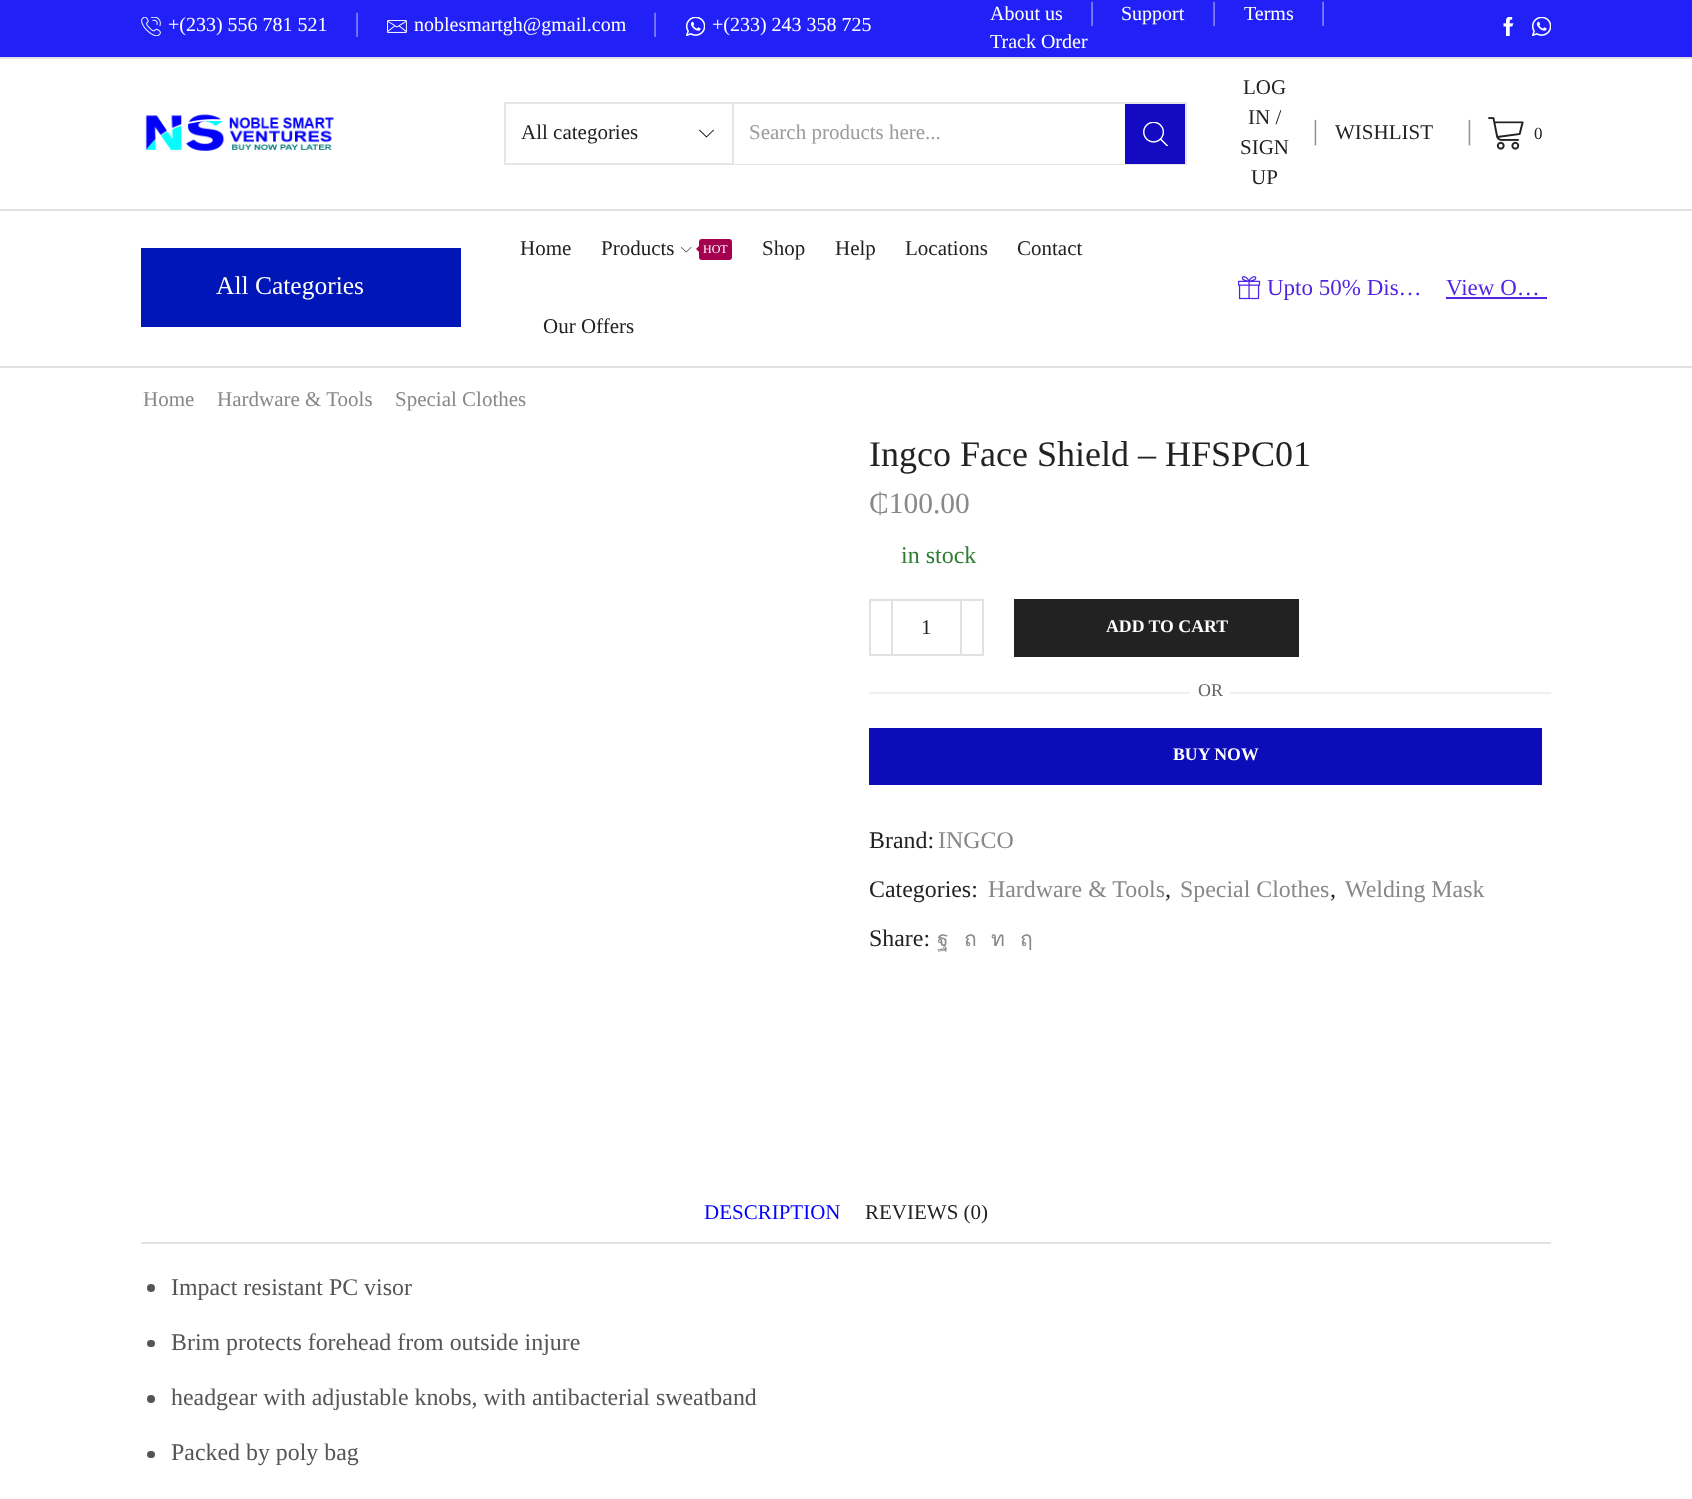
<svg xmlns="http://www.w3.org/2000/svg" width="1692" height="1499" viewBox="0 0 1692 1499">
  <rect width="100%" height="100%" fill="#ffffff"/>
  <rect x="0" y="0" width="1692" height="57" fill="#2020f7"/>
  <rect x="0" y="57" width="1692" height="2" fill="#e1e1e1"/>
  <image x="141" y="17" width="20" height="19" href="img1.png"/>
  <text x="168" y="31" font-family="Liberation Serif" font-size="20" fill="#ffffff">+(233) 556 781 521</text>
  <text x="350" y="31" font-family="Liberation Serif" font-size="20" fill="#9090fb">│</text>
  <image x="387" y="20" width="20" height="13" href="img2.png"/>
  <text x="414" y="31" font-family="Liberation Serif" font-size="20" fill="#ffffff">noblesmartgh@gmail.com</text>
  <text x="648" y="31" font-family="Liberation Serif" font-size="20" fill="#9090fb">│</text>
  <image x="686" y="17" width="19" height="19" href="img3.png"/>
  <text x="712" y="31" font-family="Liberation Serif" font-size="20" fill="#ffffff">+(233) 243 358 725</text>
  <text x="990" y="20" font-family="Liberation Serif" font-size="20" fill="#ffffff">About us</text>
  <text x="1085" y="20" font-family="Liberation Serif" font-size="20" fill="#9090fb">│</text>
  <text x="1121" y="20" font-family="Liberation Serif" font-size="20" fill="#ffffff">Support</text>
  <text x="1207" y="20" font-family="Liberation Serif" font-size="20" fill="#9090fb">│</text>
  <text x="1244" y="20" font-family="Liberation Serif" font-size="20" fill="#ffffff">Terms</text>
  <text x="1316" y="20" font-family="Liberation Serif" font-size="20" fill="#9090fb">│</text>
  <text x="990" y="48" font-family="Liberation Serif" font-size="20" fill="#ffffff">Track Order</text>
  <image x="1503" y="17" width="11" height="19" href="img4.png"/>
  <image x="1532" y="17" width="19" height="19" href="img3.png"/>
  <image x="145" y="114" width="190" height="37" href="img5.png"/>
  <rect x="505" y="103" width="681" height="61" fill="none" stroke="#e6e6e6" stroke-width="2"/>
  <image x="699" y="129" width="15" height="9" href="img6.png"/>
  <rect x="732" y="104" width="2" height="60" fill="#e6e6e6"/>
  <text x="521" y="139" font-family="Liberation Serif" font-size="21" fill="#222222">All categories</text>
  <rect x="734" y="163" width="391" height="1" fill="#ffffff"/>
  <text x="749" y="139" font-family="Liberation Serif" font-size="21" fill="#9b9b9b">Search products here...</text>
  <rect x="1125" y="104" width="60" height="60" fill="#130ac1"/>
  <image x="1143" y="122" width="26" height="24" href="img7.png"/>
  <text x="1243" y="94" font-family="Liberation Serif" font-size="21" fill="#222222">LOG</text>
  <text x="1248" y="124" font-family="Liberation Serif" font-size="21" fill="#222222">IN /</text>
  <text x="1240" y="154" font-family="Liberation Serif" font-size="21" fill="#222222">SIGN</text>
  <text x="1251" y="184" font-family="Liberation Serif" font-size="21" fill="#222222">UP</text>
  <text x="1308" y="139" font-family="Liberation Serif" font-size="21" fill="#919191">│</text>
  <text x="1335" y="139" font-family="Liberation Serif" font-size="21" fill="#222222">WISHLIST</text>
  <text x="1462" y="139" font-family="Liberation Serif" font-size="21" fill="#919191">│</text>
  <image x="1488" y="117" width="36" height="33" href="img8.png"/>
  <text x="1534" y="139" font-family="Liberation Serif" font-size="17" fill="#222222">0</text>
  <rect x="0" y="209" width="1692" height="2" fill="#e1e1e1"/>
  <rect x="0" y="366" width="1692" height="2" fill="#e1e1e1"/>
  <rect x="141" y="248" width="320" height="79" fill="#0016b6"/>
  <text x="216" y="294" font-family="Liberation Serif" font-size="25.5" fill="#ffffff">All Categories</text>
  <text x="520" y="255" font-family="Liberation Serif" font-size="21" fill="#222222">Home</text>
  <text x="601" y="255" font-family="Liberation Serif" font-size="21" fill="#222222">Products</text>
  <image x="681" y="247" width="11" height="6" href="img9.png"/>
  <rect x="699" y="239" width="33" height="21" rx="3" fill="#a4004f"/>
  <path d="M700.5 244.5V253.5L696 249Z" fill="#a4004f"/>
  <text x="703" y="253" font-family="Liberation Serif" font-size="12" fill="#ffffff">HOT</text>
  <text x="762" y="255" font-family="Liberation Serif" font-size="21" fill="#222222">Shop</text>
  <text x="835" y="255" font-family="Liberation Serif" font-size="21" fill="#222222">Help</text>
  <text x="905" y="255" font-family="Liberation Serif" font-size="21" fill="#222222">Locations</text>
  <text x="1017" y="255" font-family="Liberation Serif" font-size="21" fill="#222222">Contact</text>
  <text x="543" y="333" font-family="Liberation Serif" font-size="21" fill="#222222">Our Offers</text>
  <image x="1238" y="276" width="23" height="24" href="img10.png"/>
  <text x="1267" y="295" font-family="Liberation Serif" font-size="23" fill="#5024e2">Upto 50% Dis…</text>
  <text x="1446" y="295" font-family="Liberation Serif" font-size="23" fill="#5024e2">View O…</text>
  <rect x="1446" y="297" width="101" height="2" fill="#5024e2"/>
  <text x="143" y="406" font-family="Liberation Serif" font-size="21" fill="#888888">Home</text>
  <text x="217" y="406" font-family="Liberation Serif" font-size="21" fill="#888888">Hardware &amp; Tools</text>
  <text x="395" y="406" font-family="Liberation Serif" font-size="21" fill="#888888">Special Clothes</text>
  <text x="869" y="466" font-family="Liberation Serif" font-size="36" fill="#222222">Ingco Face Shield – HFSPC01</text>
  <text x="869" y="513" font-family="Liberation Serif" font-size="29.5" fill="#888888">₵100.00</text>
  <text x="901" y="563" font-family="Liberation Serif" font-size="24" fill="#2e7d32">in stock</text>
  <rect x="870" y="600" width="22" height="55" fill="none" stroke="#e1e1e1" stroke-width="2"/>
  <rect x="893" y="599" width="67" height="2" fill="#e1e1e1"/>
  <rect x="893" y="654" width="67" height="2" fill="#e1e1e1"/>
  <text x="921" y="634" font-family="Liberation Serif" font-size="21" fill="#222222">1</text>
  <rect x="961" y="600" width="22" height="55" fill="none" stroke="#e1e1e1" stroke-width="2"/>
  <rect x="1014" y="599" width="285" height="58" fill="#222222"/>
  <text x="1106" y="632" font-family="Liberation Serif" font-size="17.75" font-weight="bold" fill="#ffffff">ADD TO CART</text>
  <rect x="869" y="692" width="321" height="2" fill="#f0f0f0"/>
  <text x="1198" y="696" font-family="Liberation Serif" font-size="18" fill="#646464">OR</text>
  <rect x="1230" y="692" width="321" height="2" fill="#f0f0f0"/>
  <rect x="869" y="728" width="673" height="57" fill="#0c0cb9"/>
  <text x="1173" y="760" font-family="Liberation Serif" font-size="17.75" font-weight="bold" fill="#ffffff">BUY NOW</text>
  <text x="869" y="848" font-family="Liberation Serif" font-size="23.9" fill="#222222">Brand:</text>
  <text x="938" y="848" font-family="Liberation Serif" font-size="23.9" fill="#888888">INGCO</text>
  <text x="869" y="897" font-family="Liberation Serif" font-size="23.9" fill="#222222">Categories:</text>
  <text x="988" y="897" font-family="Liberation Serif" font-size="23.9" fill="#888888">Hardware &amp; Tools</text>
  <text x="1165" y="897" font-family="Liberation Serif" font-size="23.9" fill="#222222">,</text>
  <text x="1180" y="897" font-family="Liberation Serif" font-size="23.9" fill="#888888">Special Clothes</text>
  <text x="1330" y="897" font-family="Liberation Serif" font-size="23.9" fill="#222222">,</text>
  <text x="1345" y="897" font-family="Liberation Serif" font-size="23.9" fill="#888888">Welding Mask</text>
  <text x="869" y="946" font-family="Liberation Serif" font-size="23.9" fill="#222222">Share:</text>
  <text x="937" y="946" font-family="Loma" font-size="21" fill="#888888">ฐ</text>
  <text x="964" y="946" font-family="Loma" font-size="21" fill="#888888">ถ</text>
  <text x="991" y="946" font-family="Loma" font-size="21" fill="#888888">ท</text>
  <text x="1020" y="946" font-family="Loma" font-size="21" fill="#888888">ฤ</text>
  <rect x="141" y="1242" width="1410" height="2" fill="#e1e1e1"/>
  <text x="704" y="1219" font-family="Liberation Serif" font-size="21" fill="#0201f9">DESCRIPTION</text>
  <text x="865" y="1219" font-family="Liberation Serif" font-size="21" fill="#222222">REVIEWS (0)</text>
  <circle cx="151" cy="1288" r="4" fill="#555555"/>
  <text x="171" y="1295" font-family="Liberation Serif" font-size="23.9" fill="#555555">Impact resistant PC visor</text>
  <rect x="147" y="1340" width="8" height="7" rx="3.5" fill="#555555"/>
  <text x="171" y="1350" font-family="Liberation Serif" font-size="23.9" fill="#555555">Brim protects forehead from outside injure</text>
  <circle cx="151" cy="1399" r="4" fill="#555555"/>
  <text x="171" y="1405" font-family="Liberation Serif" font-size="23.9" fill="#555555">headgear with adjustable knobs, with antibacterial sweatband</text>
  <rect x="147" y="1451" width="8" height="7" rx="3.5" fill="#555555"/>
  <text x="171" y="1460" font-family="Liberation Serif" font-size="23.9" fill="#555555">Packed by poly bag</text>
</svg>
